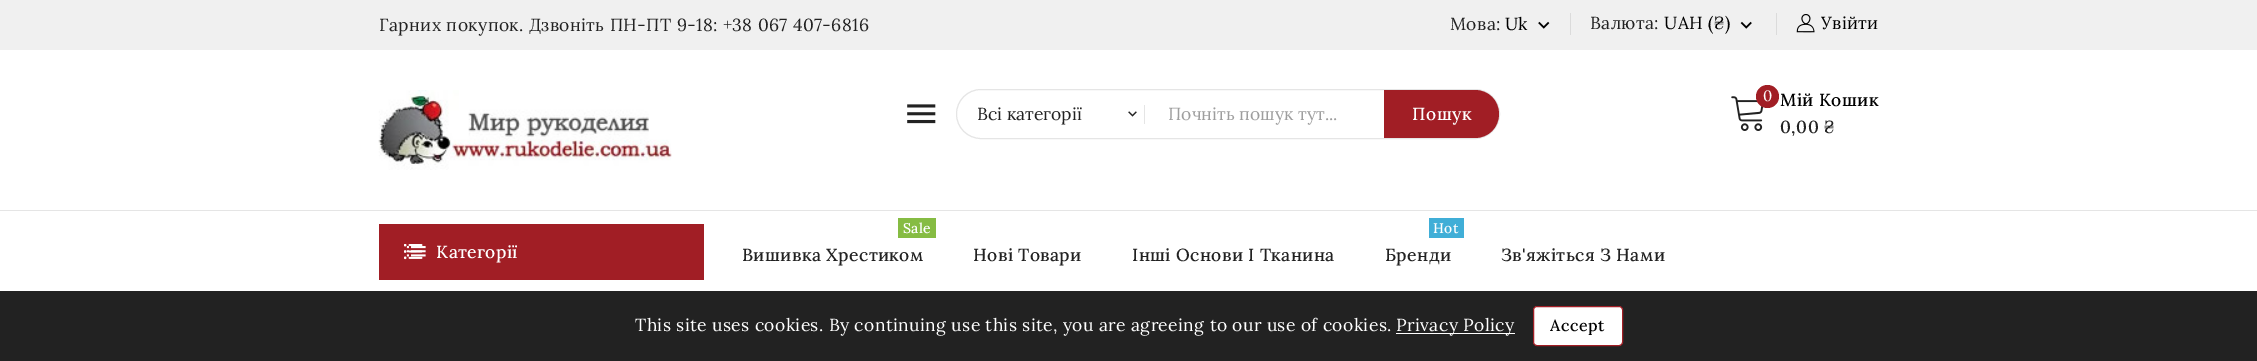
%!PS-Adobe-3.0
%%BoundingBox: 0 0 2257 361
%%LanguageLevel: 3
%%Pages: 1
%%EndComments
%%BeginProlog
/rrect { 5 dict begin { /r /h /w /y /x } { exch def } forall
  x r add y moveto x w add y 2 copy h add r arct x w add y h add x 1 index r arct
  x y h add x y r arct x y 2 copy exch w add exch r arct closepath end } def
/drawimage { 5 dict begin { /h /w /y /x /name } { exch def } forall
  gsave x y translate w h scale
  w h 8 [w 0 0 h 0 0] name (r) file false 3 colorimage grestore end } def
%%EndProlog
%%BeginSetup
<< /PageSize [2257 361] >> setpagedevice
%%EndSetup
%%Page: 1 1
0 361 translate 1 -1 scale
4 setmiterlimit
1 setgray
0 0 2257 361 rectfill
0.941 setgray
0 0 2257 50 rectfill
(images/1.raw) 1538 21 12 8 drawimage
0.859 setgray
1776 13 1 22 rectfill
1570 13 1 22 rectfill
(images/2.raw) 1740 21 12 8 drawimage
(images/3.raw) 1796 14 19 19 drawimage
0.898 setgray
0 210 2257 1 rectfill
(images/4.raw) 378 90 294 80 drawimage
(images/5.raw) 907 104 29 20 drawimage
956.5 89.5 543 49 24.5 rrect stroke
1144 105 1 19 rectfill
(images/6.raw) 1128 111 9 6 drawimage
0.631 0.118 0.145 setrgbcolor
newpath 1384 90 moveto 1475 90 lineto 1488.5 90 1499 100.5 1499 114 curveto 1499 127.5 1488.5 138 1475 138 curveto 1384 138 lineto closepath fill
(images/7.raw) 1731 96 32 35 drawimage
newpath 1767.5 96.5 11.5 0 360 arc closepath fill
379 224 325 56 rectfill
(images/8.raw) 404 244 19 16 drawimage
(images/9.raw) 406 246 20 11 drawimage
0.525 0.737 0.263 setrgbcolor
898 218 38 20 rectfill
0.251 0.682 0.843 setrgbcolor
1429 218 35 20 rectfill
0.133 setgray
0 291 2257 70 rectfill
1 setgray
1396 333 119 1 rectfill
1533.5 306.5 89 39 3.5 rrect gsave fill grestore
0.631 0.118 0.145 setrgbcolor
stroke
/Lora-Regular [17.5 0 0 -17.5 0 0] selectfont
0.133 setgray
379 31 moveto 0.38 0 (Гарних покупок. Дзвоніть ПН-ПТ 9-18: +38 067 407-6816) ashow
1450 30 moveto 0.38 0 (Мова:) ashow
0 setgray
1505 30 moveto (Uk) show
0.133 setgray
1590 29 moveto 0.38 0 (Валюта:) ashow
0 setgray
1664 29 moveto 0.38 0 (UAH \(₴\)) ashow
1821 29 moveto 0.38 0 (Увійти) ashow
0.133 setgray
977 120 moveto (Всі категорії) show
0.62 setgray
1168 120 moveto (Почніть пошук тут...) show
/Lora-Medium [17.5 0 0 -17.5 0 0] selectfont
1 setgray
1412 120 moveto 0.5 0 (Пошук) ashow
/Lora-Regular [15 0 0 -15 0 0] selectfont
1763 101 moveto 0.38 0 (0) ashow
/Lora-Medium [17.5 0 0 -17.5 0 0] selectfont
0 setgray
1780 106 moveto 0.38 0 (Мій Кошик) ashow
0.133 setgray
1780 133 moveto 0.5 0 (0,00 ₴) ashow
1 setgray
436 258 moveto 0.38 0 (Категорії) ashow
/Lora-Medium [14 0 0 -14 0 0] selectfont
903 233 moveto 0.38 0 (Sale) ashow
/Lora-Medium [17.5 0 0 -17.5 0 0] selectfont
0.133 setgray
742 261 moveto 0.38 0 (Вишивка Хрестиком) ashow
973 261 moveto 0.38 0 (Нові Товари) ashow
1132 261 moveto 0.38 0 (Інші Основи І Тканина) ashow
/Lora-Medium [14 0 0 -14 0 0] selectfont
1 setgray
1433 233 moveto 0.38 0 (Hot) ashow
/Lora-Medium [17.5 0 0 -17.5 0 0] selectfont
0.133 setgray
1385 261 moveto 0.38 0 (Бренди) ashow
1501 261 moveto 0.38 0 (Зв'яжіться З Нами) ashow
/Lora-Regular [17.5 0 0 -17.5 0 0] selectfont
1 setgray
635 331 moveto 0.38 0 (This site uses cookies. By continuing use this site, you are agreeing to our use of cookies.) ashow
1396 331 moveto 0.38 0 (Privacy Policy) ashow
/Lora-Medium [16 0 0 -16 0 0] selectfont
0 setgray
1550 331 moveto 0.5 0 (Accept) ashow
showpage
%%EOF
